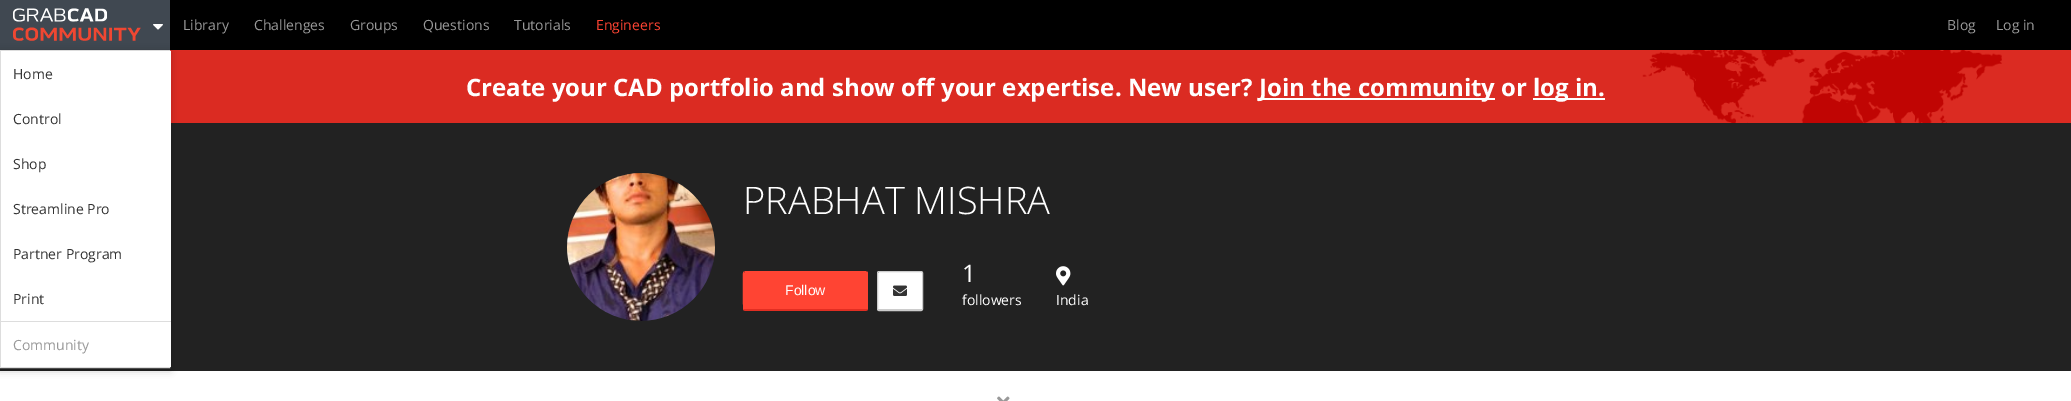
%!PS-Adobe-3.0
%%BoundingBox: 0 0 2071 401
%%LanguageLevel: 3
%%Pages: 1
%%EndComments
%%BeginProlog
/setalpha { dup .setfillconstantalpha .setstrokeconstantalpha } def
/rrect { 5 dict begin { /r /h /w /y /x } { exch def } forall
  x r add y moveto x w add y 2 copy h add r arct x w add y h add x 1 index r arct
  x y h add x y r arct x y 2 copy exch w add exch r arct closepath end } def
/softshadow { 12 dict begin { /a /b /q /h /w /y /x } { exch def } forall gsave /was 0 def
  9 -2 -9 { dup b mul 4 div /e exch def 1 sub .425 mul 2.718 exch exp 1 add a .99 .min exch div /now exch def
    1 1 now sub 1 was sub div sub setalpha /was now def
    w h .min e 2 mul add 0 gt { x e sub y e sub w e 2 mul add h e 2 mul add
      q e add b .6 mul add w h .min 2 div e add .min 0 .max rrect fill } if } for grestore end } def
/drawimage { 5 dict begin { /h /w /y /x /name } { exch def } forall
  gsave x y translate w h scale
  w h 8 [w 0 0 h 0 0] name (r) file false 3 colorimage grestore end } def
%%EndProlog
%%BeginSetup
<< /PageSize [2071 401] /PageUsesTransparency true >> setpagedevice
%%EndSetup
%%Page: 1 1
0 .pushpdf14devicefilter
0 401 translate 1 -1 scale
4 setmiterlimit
1 setgray
0 0 2071 401 rectfill
0 setgray
170 0 1901 50 rectfill
0.251 0.282 0.318 setrgbcolor
0 0 170 50 rectfill
(images/1.raw) 13 8 128 33 drawimage
(images/2.raw) 153 24 10 6 drawimage
0.859 0.169 0.133 setrgbcolor
170 50 1901 73 rectfill
0.133 setgray
0 123 2071 248 rectfill
0 setgray
0 52 170 318 0 4 0.25 softshadow
0.867 setgray
0.5 50.5 169 317 rectstroke
1 setgray
1 51 170 270 rectfill
0.867 setgray
1 321 170 1 rectfill
1 setgray
1 322 170 45 rectfill
(images/3.raw) 1642 50 360 73 drawimage
1259 98 236 2 rectfill
1533 98 72 2 rectfill
(images/4.raw) 567 173 148 148 drawimage
1 0.267 0.2 setrgbcolor
newpath 745 272 moveto 866 272 lineto 867 272 867 272 867 273 curveto 867 309 lineto 744 309 lineto 744 273 lineto closepath fill
newpath 745 271 moveto 744 272 lineto 745 272 lineto 867 272 lineto 866 271 lineto closepath fill
newpath 868 309 moveto 868 273 lineto 867.5 271.5 lineto 867 272 lineto 867 297 lineto 867 300 866.5 307.5 867.5 310 curveto closepath fill
0.886 0.18 0.133 setrgbcolor
newpath 745 311 moveto 866 311 lineto 868 310 lineto 867 309 lineto 744 309 lineto 743 310 lineto closepath fill
1 0.267 0.2 setrgbcolor
newpath 743 273 moveto 743 277.5 742.5 309 743.5 310 curveto 744 309 lineto 744 273 lineto 744.5 272.5 lineto 743.5 271.5 lineto closepath fill
1 setgray
newpath 879 272 moveto 921 272 lineto 922 272 922 272 922 273 curveto 922 309 lineto 878 309 lineto 878 273 lineto closepath fill
0.8 setgray
877.5 271.5 45 39 1.5 rrect stroke
878 309 44 1 rectfill
(images/5.raw) 893 285 14 11 drawimage
(images/6.raw) 1056 266 15 20 drawimage
(images/7.raw) 997 396 13 5 drawimage
/OpenSans-Regular [14 0 0 -14 0 0] selectfont
0.6 setgray
183 30 moveto (Library) show
254 30 moveto (Challenges) show
350 30 moveto (Groups) show
423 30 moveto (Questions) show
514 30 moveto (Tutorials) show
1 0.267 0.2 setrgbcolor
596 30 moveto (Engineers) show
0.6 setgray
1947 30 moveto (Blog) show
1996 30 moveto (Log in) show
0.2 setgray
13 79 moveto (Home) show
13 124 moveto (Control) show
13 169 moveto (Shop) show
13 214 moveto (Streamline Pro) show
13 259 moveto (Partner Program) show
13 304 moveto (Print) show
0.6 setgray
13 350 moveto (Community) show
/OpenSans-Bold [24 0 0 -24 0 0] selectfont
1 setgray
466 96 moveto (Create your CAD portfolio and show off your expertise. New user?) show
1259 96 moveto (Join the community or) show
1533 96 moveto (log in.) show
/OpenSans-Light [38 0 0 -38 0 0] selectfont
743 214 moveto (PRABHAT MISHRA) show
/LiberationSans-Regular [14 0 0 -14 0 0] selectfont
785 295 moveto (Follow) show
/OpenSans-Regular [24 0 0 -24 0 0] selectfont
962 282 moveto (1) show
/OpenSans-Regular [14 0 0 -14 0 0] selectfont
962 305 moveto (followers) show
1056 305 moveto (India) show
.poppdf14devicefilter showpage
%%EOF
